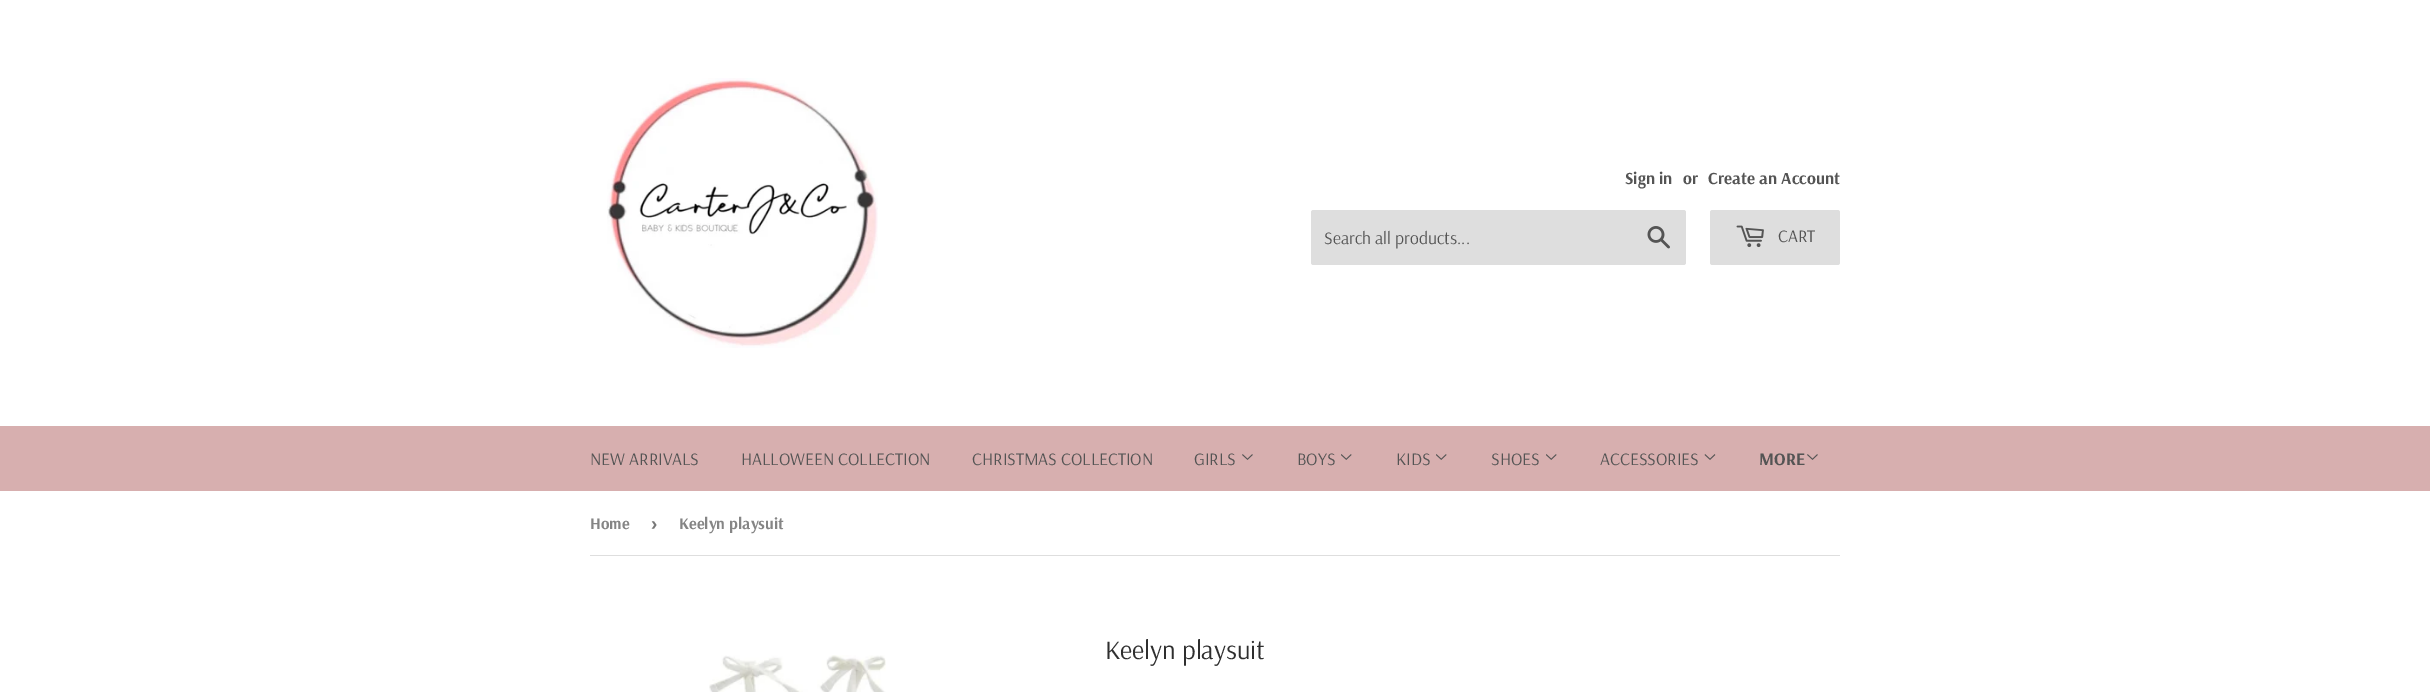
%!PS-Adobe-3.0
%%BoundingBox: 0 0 2430 692
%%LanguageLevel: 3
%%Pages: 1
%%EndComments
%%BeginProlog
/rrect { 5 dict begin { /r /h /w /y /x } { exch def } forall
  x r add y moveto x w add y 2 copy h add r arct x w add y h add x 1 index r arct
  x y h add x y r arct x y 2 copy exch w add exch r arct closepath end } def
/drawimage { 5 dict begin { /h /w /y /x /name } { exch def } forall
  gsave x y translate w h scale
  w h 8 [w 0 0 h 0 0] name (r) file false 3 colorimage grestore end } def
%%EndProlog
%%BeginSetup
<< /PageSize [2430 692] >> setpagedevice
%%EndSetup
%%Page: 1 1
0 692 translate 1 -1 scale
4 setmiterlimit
1 setgray
0 0 2430 692 rectfill
(images/1.raw) 607 78 271 270 drawimage
0.871 setgray
1311 210 375 55 2.5 rrect fill
(images/2.raw) 1647 226 23 23 drawimage
1710 210 130 55 2.5 rrect fill
(images/3.raw) 1736 225 28 23 drawimage
0.843 0.686 0.686 setrgbcolor
0 426 2430 65 rectfill
(images/4.raw) 1242 454 11 6 drawimage
(images/5.raw) 1341 454 11 6 drawimage
(images/5.raw) 1436 454 11 6 drawimage
(images/5.raw) 1546 454 11 6 drawimage
(images/6.raw) 1704 454 12 6 drawimage
(images/4.raw) 1807 454 11 6 drawimage
0.871 setgray
590 555 1250 1 rectfill
(images/7.raw) 709 655 177 37 drawimage
/Arsenal-Bold [17 0 0 -17 0 0] selectfont
0.329 setgray
1625 184 moveto (Sign in) show
1683 184 moveto (or) show
1708 184 moveto (Create an Account) show
/Arsenal-Regular [17.5 0 0 -17.5 0 0] selectfont
1324 244 moveto (Search all products...) show
1778 242 moveto (CART) show
590 465 moveto (NEW ARRIVALS) show
741 465 moveto (HALLOWEEN COLLECTION) show
972 465 moveto (CHRISTMAS COLLECTION) show
1194 465 moveto (GIRLS) show
1297 465 moveto (BOYS) show
1396 465 moveto (KIDS) show
1491 465 moveto (SHOES) show
1600 465 moveto (ACCESSORIES) show
/Arsenal-Bold [17.5 0 0 -17.5 0 0] selectfont
1759 465 moveto (MORE) show
/Arsenal-Bold [16.25 0 0 -16.25 0 0] selectfont
0.522 setgray
590 529 moveto (Home) show
/LiberationSans-Bold [19 0 0 -19 0 0] selectfont
0.463 setgray
651 530 moveto (›) show
/Arsenal-Bold [16.25 0 0 -16.25 0 0] selectfont
0.522 setgray
679 529 moveto (Keelyn playsuit) show
/Arsenal-Regular [26.5 0 0 -26.5 0 0] selectfont
0.184 setgray
1105 659 moveto (Keelyn playsuit) show
showpage
%%EOF
